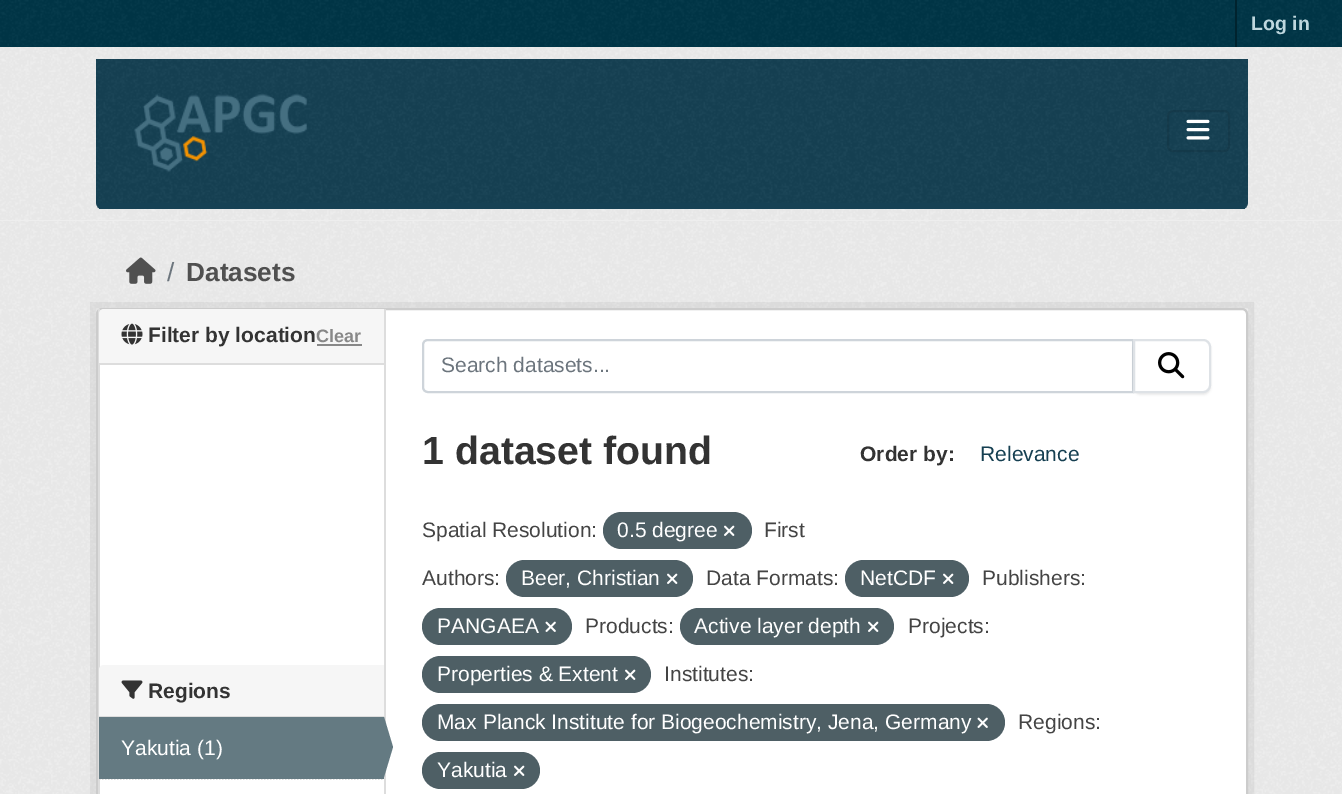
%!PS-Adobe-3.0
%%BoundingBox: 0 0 1342 794
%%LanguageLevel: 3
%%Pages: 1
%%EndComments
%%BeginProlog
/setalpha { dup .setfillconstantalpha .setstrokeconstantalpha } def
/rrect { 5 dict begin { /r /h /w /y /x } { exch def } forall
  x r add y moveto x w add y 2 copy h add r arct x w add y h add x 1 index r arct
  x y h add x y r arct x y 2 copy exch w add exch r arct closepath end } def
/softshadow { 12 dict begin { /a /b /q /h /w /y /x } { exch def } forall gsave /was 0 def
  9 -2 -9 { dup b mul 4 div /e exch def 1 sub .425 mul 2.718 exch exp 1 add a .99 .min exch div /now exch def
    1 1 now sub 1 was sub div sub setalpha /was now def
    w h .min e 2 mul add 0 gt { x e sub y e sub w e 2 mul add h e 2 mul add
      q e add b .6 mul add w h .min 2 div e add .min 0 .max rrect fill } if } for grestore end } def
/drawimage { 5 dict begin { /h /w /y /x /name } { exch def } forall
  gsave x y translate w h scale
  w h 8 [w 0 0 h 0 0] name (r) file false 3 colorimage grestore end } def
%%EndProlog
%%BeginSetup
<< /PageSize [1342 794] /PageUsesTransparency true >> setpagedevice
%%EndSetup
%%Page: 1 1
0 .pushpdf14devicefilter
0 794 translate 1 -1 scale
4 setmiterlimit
0 0.212 0.278 setrgbcolor
0 0 1342 794 rectfill
(images/1.raw) 0 0 1342 46 drawimage
0 0.137 0.18 setrgbcolor
1235 0 2 47 rectfill
0.933 setgray
0 47 1342 747 rectfill
(images/2.raw) 0 47 1342 173 drawimage
0.086 0.255 0.329 setrgbcolor
newpath 96 59 moveto 1248 59 lineto 1248 203 lineto 1248 206.5 1245.5 209 1242 209 curveto 102 209 lineto 98.5 209 96 206.5 96 203 curveto closepath fill
(images/3.raw) 96 59 1152 148 drawimage
99 203 1146 6 rectfill
(images/4.raw) 134 94 173 78 drawimage
0.1 setalpha
0 setgray
2 setlinewidth
1168 111 61 40 5 rrect stroke
1 setalpha
(images/5.raw) 1186 119 24 21 drawimage
(images/6.raw) 0 221 1342 573 drawimage
(images/7.raw) 126 257 30 27 drawimage
0.05 setalpha
6 setlinewidth
93 305 1158 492 rectstroke
1 setalpha
1 setgray
97 309 1150 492 5 rrect gsave fill grestore
0.8 setgray
2 setlinewidth
stroke
0.867 setgray
98 309 2 485 rectfill
0.965 setgray
newpath 104 309 moveto 384 309 lineto 384 365 lineto 99 365 lineto 99 314 lineto 99 311 101 309 104 309 curveto closepath fill
0.867 setgray
99 363 285 2 rectfill
(images/8.raw) 121 323 22 22 drawimage
0.533 setgray
317 344 45 2 rectfill
0.965 setgray
newpath 104 665 moveto 384 665 lineto 384 717 lineto 99 717 lineto 99 670 lineto 99 667 101 665 104 665 curveto closepath fill
0.867 setgray
99 716 285 1 rectfill
(images/9.raw) 121 680 22 19 drawimage
1.5 setlinewidth
[1.5 1.5] 0 setdash
newpath 99 779 moveto 384 779 lineto stroke
0.392 0.478 0.51 setrgbcolor
99 717 285 62 rectfill
0.867 setgray
384 309 2 485 rectfill
0.392 0.478 0.51 setrgbcolor
newpath 384 777 moveto 384 717 lineto 393 747 lineto closepath fill
0.808 0.831 0.855 setrgbcolor
2 setlinewidth
[] 0 setdash
newpath 428 340 moveto 1133 340 lineto 1133 392 lineto 428 392 lineto 425 392 423 390 423 387 curveto 423 345 lineto 423 342 425 340 428 340 curveto closepath stroke
0 setgray
1133 341 78 54 8 1 0.07 softshadow
1 setgray
newpath 1134 340 moveto 1203 340 lineto 1207 340 1210 343 1210 347 curveto 1210 385 lineto 1210 389 1207 392 1203 392 curveto 1134 392 lineto closepath gsave fill grestore
0.871 0.886 0.902 setrgbcolor
stroke
(images/10.raw) 1158 352 27 27 drawimage
0.306 0.373 0.396 setrgbcolor
603 512 149 37 18.5 rrect fill
(images/11.raw) 724 525 11 11 drawimage
506 560 187 37 18.5 rrect fill
(images/11.raw) 667 573 11 11 drawimage
845 560 124 37 18.5 rrect fill
(images/11.raw) 943 573 11 11 drawimage
422 608 150 37 18.5 rrect fill
(images/12.raw) 545 621 11 11 drawimage
680 608 214 37 18.5 rrect fill
(images/11.raw) 868 621 11 11 drawimage
422 656 229 37 18.5 rrect fill
(images/11.raw) 625 669 11 11 drawimage
422 704 583 37 18.5 rrect fill
(images/12.raw) 977 717 11 11 drawimage
422 752 118 37 18.5 rrect fill
(images/11.raw) 514 765 11 11 drawimage
/LiberationSans-Bold [19.5 0 0 -19.5 0 0] selectfont
0.749 0.843 0.871 setrgbcolor
1251 30 moveto (Log in) show
/LiberationSans-Regular [26.25 0 0 -26.25 0 0] selectfont
0.424 0.459 0.49 setrgbcolor
167 281 moveto (/) show
/LiberationSans-Bold [26.25 0 0 -26.25 0 0] selectfont
0.314 setgray
186 281 moveto (Datasets) show
/LiberationSans-Bold [21 0 0 -21 0 0] selectfont
0.2 setgray
148 342 moveto (Filter by location) show
/LiberationSans-Bold [18 0 0 -18 0 0] selectfont
0.533 setgray
316 342 moveto (Clear) show
/LiberationSans-Bold [21 0 0 -21 0 0] selectfont
0.2 setgray
148 698 moveto (Regions) show
/LiberationSans-Regular [21 0 0 -21 0 0] selectfont
1 setgray
121 755 moveto (Yakutia \(1\)) show
0.424 0.459 0.49 setrgbcolor
441 372 moveto (Search datasets...) show
/LiberationSans-Bold [39.25 0 0 -39.25 0 0] selectfont
0.2 setgray
422 464 moveto (1 dataset found) show
/LiberationSans-Bold [21 0 0 -21 0 0] selectfont
860 461 moveto (Order by:) show
/LiberationSans-Regular [21 0 0 -21 0 0] selectfont
0.082 0.247 0.318 setrgbcolor
980 461 moveto (Relevance) show
0.267 setgray
422 537 moveto (Spatial Resolution:) show
1 setgray
617 537 moveto (0.5 degree) show
0.267 setgray
764 537 moveto (First) show
422 585 moveto (Authors:) show
1 setgray
521 585 moveto (Beer, Christian) show
0.267 setgray
706 585 moveto (Data Formats:) show
1 setgray
860 585 moveto (NetCDF) show
0.267 setgray
982 585 moveto (Publishers:) show
1 setgray
437 633 moveto (PANGAEA) show
0.267 setgray
585 633 moveto (Products:) show
1 setgray
694 633 moveto (Active layer depth) show
0.267 setgray
908 633 moveto (Projects:) show
1 setgray
437 681 moveto (Properties & Extent) show
0.267 setgray
664 681 moveto (Institutes:) show
1 setgray
437 729 moveto (Max Planck Institute for Biogeochemistry, Jena, Germany) show
0.267 setgray
1018 729 moveto (Regions:) show
1 setgray
437 777 moveto (Yakutia) show
.poppdf14devicefilter showpage
%%EOF
